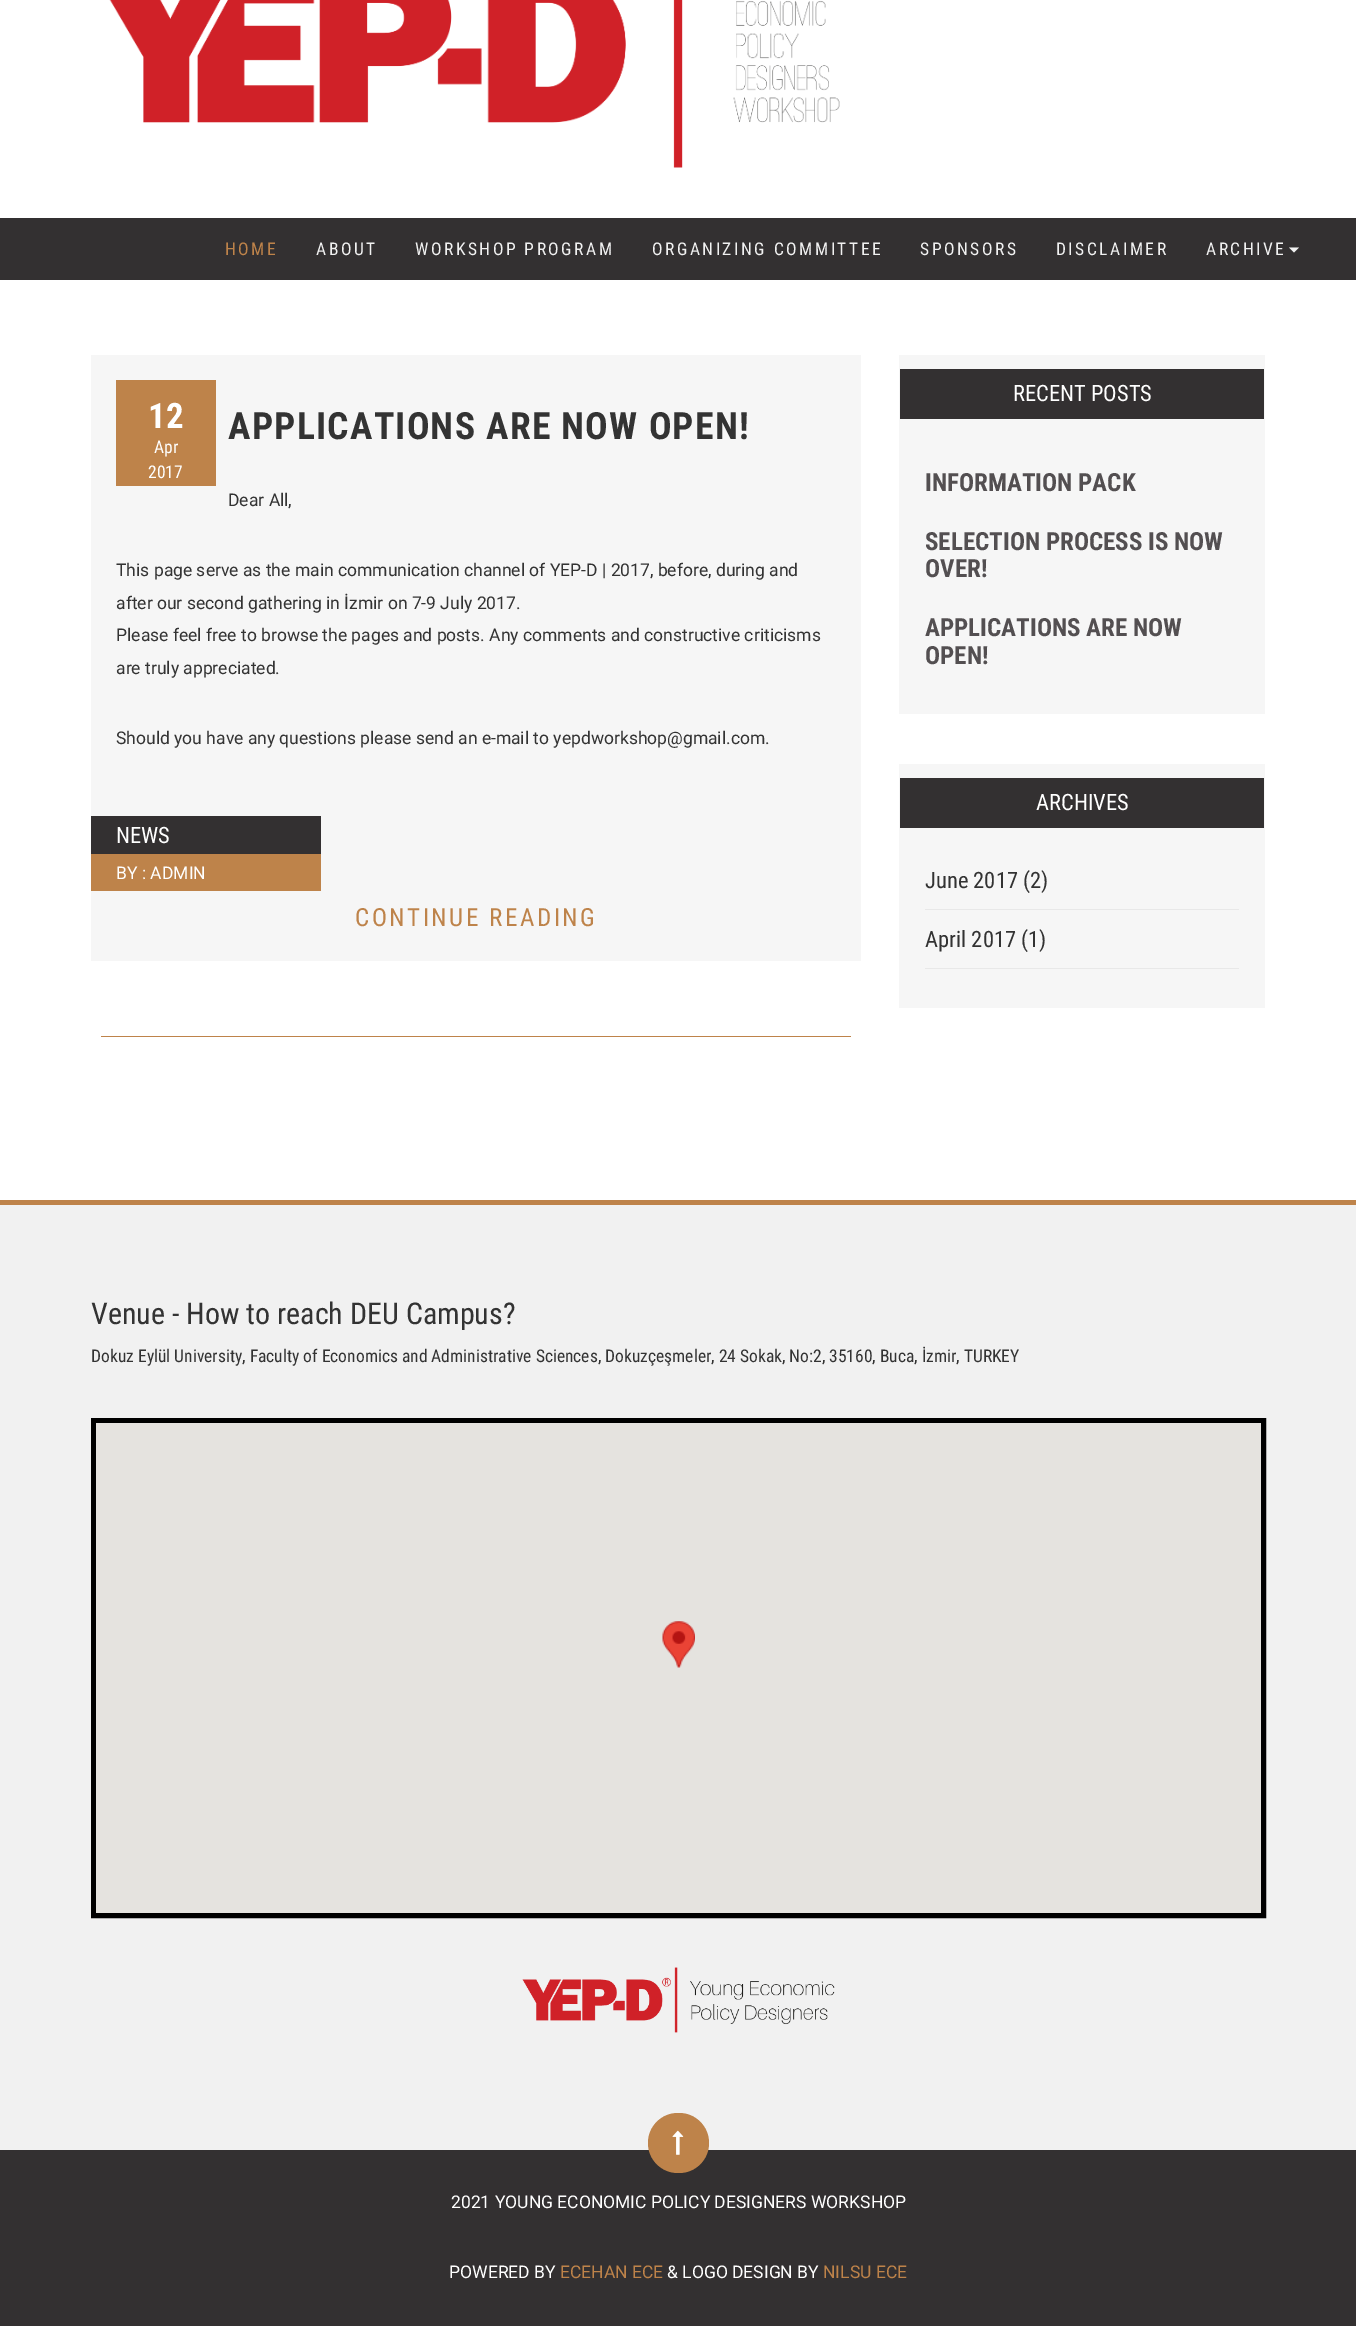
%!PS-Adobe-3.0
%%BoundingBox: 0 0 1356 2326
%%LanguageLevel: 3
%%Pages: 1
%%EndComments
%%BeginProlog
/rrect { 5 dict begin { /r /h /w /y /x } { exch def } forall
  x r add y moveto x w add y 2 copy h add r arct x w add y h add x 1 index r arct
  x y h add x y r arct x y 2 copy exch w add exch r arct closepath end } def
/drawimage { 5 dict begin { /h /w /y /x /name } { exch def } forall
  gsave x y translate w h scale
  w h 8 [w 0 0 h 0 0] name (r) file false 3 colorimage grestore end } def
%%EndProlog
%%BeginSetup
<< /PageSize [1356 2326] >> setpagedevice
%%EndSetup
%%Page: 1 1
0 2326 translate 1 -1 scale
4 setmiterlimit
1 setgray
0 0 1356 2326 rectfill
(images/1.raw) 109 0 731 168 drawimage
0.2 0.188 0.192 setrgbcolor
0 218 1356 62 rectfill
0.945 setgray
newpath 1289 247.5 moveto 1299 247.5 lineto 1294 252.5 lineto closepath fill
0.965 setgray
91 355 770 606 rectfill
0.745 0.514 0.29 setrgbcolor
116 380 100 106 rectfill
0.2 0.188 0.192 setrgbcolor
91 816 230 38 rectfill
0.745 0.514 0.29 setrgbcolor
91 854 230 37 rectfill
101 1036 750 1 rectfill
0.965 setgray
899 355 366 359 rectfill
0.2 0.188 0.192 setrgbcolor
900 369 364 50 rectfill
0.965 setgray
899 764 366 244 rectfill
0.2 0.188 0.192 setrgbcolor
900 778 364 50 rectfill
0.91 setgray
925 909 314 1 rectfill
925 968 314 1 rectfill
0.945 setgray
0 1205 1356 945 rectfill
0.745 0.514 0.29 setrgbcolor
0 1200 1356 5 rectfill
0 setgray
5 setlinewidth
93.5 1420.5 1170 495 rectstroke
0.898 0.89 0.875 setrgbcolor
96 1423 1165 490 rectfill
(images/2.raw) 662 1621 33 47 drawimage
(images/3.raw) 522 1967 313 66 drawimage
0.2 0.188 0.192 setrgbcolor
0 2150 1356 176 rectfill
0.745 0.514 0.29 setrgbcolor
648 2113 61 60 30 rrect fill
(images/4.raw) 672 2130 12 25 drawimage
/RobotoCondensed-Regular [17.5 0 0 -17.5 0 0] selectfont
225 255 moveto 2.5 0 (HOME) ashow
0.945 setgray
316 255 moveto 2.5 0 (ABOUT) ashow
415 255 moveto 2.5 0 (WORKSHOP PROGRAM) ashow
652 255 moveto 2.5 0 (ORGANIZING COMMITTEE) ashow
920 255 moveto 2.5 0 (SPONSORS) ashow
1056 255 moveto 2.5 0 (DISCLAIMER) ashow
1206 255 moveto 2.5 0 (ARCHIVE) ashow
/RobotoCondensed-Bold [35 0 0 -35 0 0] selectfont
1 setgray
148 428 moveto (12) show
/RobotoCondensed-Regular [17.5 0 0 -17.5 0 0] selectfont
154 453 moveto (Apr) show
148 478 moveto (2017) show
/RobotoCondensed-Bold [37.5 0 0 -37.5 0 0] selectfont
0.2 setgray
228 439 moveto 1.25 0 (APPLICATIONS ARE NOW OPEN!) ashow
/Roboto-Regular [17.5 0 0 -17.5 0 0] selectfont
228 506 moveto (Dear All,) show
116 576 moveto (This page serve as the main communication channel of YEP-D | 2017, before, during and) show
116 609 moveto (after our second gathering in İzmir on 7-9 July 2017.) show
116 641 moveto (Please feel free to browse the pages and posts. Any comments and constructive criticisms) show
116 674 moveto (are truly appreciated.) show
116 744 moveto (Should you have any questions please send an e-mail to yepdworkshop@gmail.com.) show
/RobotoCondensed-Regular [22.5 0 0 -22.5 0 0] selectfont
1 setgray
116 843 moveto (NEWS) show
/Roboto-Regular [17.5 0 0 -17.5 0 0] selectfont
116 879 moveto (BY : ADMIN) show
/RobotoCondensed-Regular [25 0 0 -25 0 0] selectfont
0.745 0.514 0.29 setrgbcolor
355 926 moveto 2.5 0 (CONTINUE READING) ashow
/RobotoCondensed-Regular [22.5 0 0 -22.5 0 0] selectfont
1 setgray
1013 401 moveto (RECENT POSTS) show
/RobotoCondensed-Bold [25 0 0 -25 0 0] selectfont
0.325 0.31 0.318 setrgbcolor
925 491 moveto (INFORMATION PACK) show
925 550 moveto (SELECTION PROCESS IS NOW) show
925 577 moveto (OVER!) show
925 636 moveto (APPLICATIONS ARE NOW) show
925 664 moveto (OPEN!) show
/RobotoCondensed-Regular [22.5 0 0 -22.5 0 0] selectfont
1 setgray
1036 810 moveto (ARCHIVES) show
0.2 setgray
925 888 moveto (June 2017 \(2\)) show
925 947 moveto (April 2017 \(1\)) show
/RobotoCondensed-Regular [30 0 0 -30 0 0] selectfont
91 1324 moveto (Venue - How to reach DEU Campus?) show
/RobotoCondensed-Regular [17.5 0 0 -17.5 0 0] selectfont
91 1362 moveto (Dokuz Eylül University, Faculty of Economics and Administrative Sciences, Dokuzçeşmeler, 24 Sokak, No:2, 35160, Buca, İzmir, TURKEY) show
/Roboto-Regular [17.5 0 0 -17.5 0 0] selectfont
1 setgray
451 2208 moveto (2021 YOUNG ECONOMIC POLICY DESIGNERS WORKSHOP) show
449 2278 moveto (POWERED BY) show
0.745 0.514 0.29 setrgbcolor
560 2278 moveto (ECEHAN ECE) show
1 setgray
667 2278 moveto (& LOGO DESIGN BY) show
0.745 0.514 0.29 setrgbcolor
823 2278 moveto (NILSU ECE) show
showpage
%%EOF
